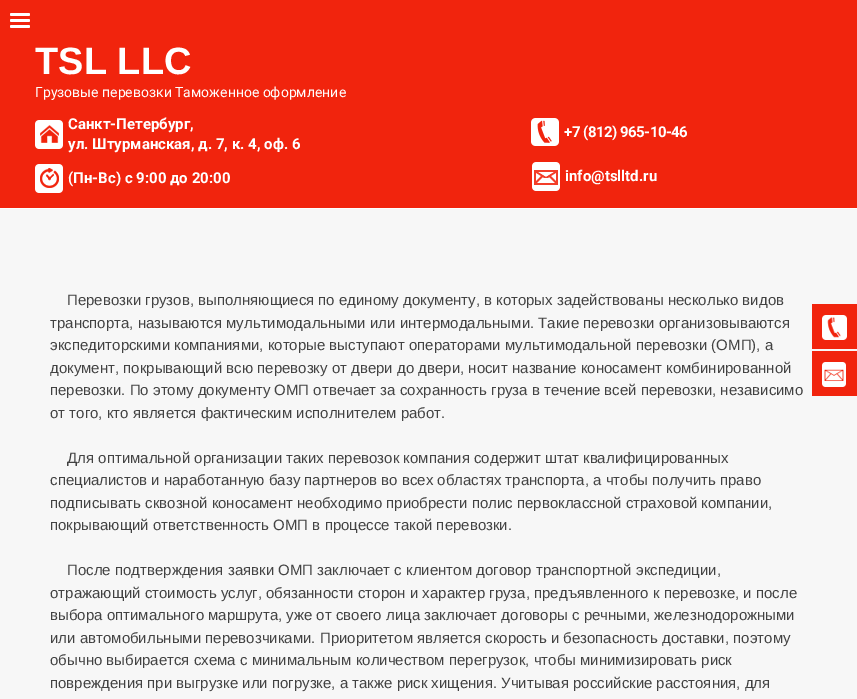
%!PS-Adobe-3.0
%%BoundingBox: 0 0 857 699
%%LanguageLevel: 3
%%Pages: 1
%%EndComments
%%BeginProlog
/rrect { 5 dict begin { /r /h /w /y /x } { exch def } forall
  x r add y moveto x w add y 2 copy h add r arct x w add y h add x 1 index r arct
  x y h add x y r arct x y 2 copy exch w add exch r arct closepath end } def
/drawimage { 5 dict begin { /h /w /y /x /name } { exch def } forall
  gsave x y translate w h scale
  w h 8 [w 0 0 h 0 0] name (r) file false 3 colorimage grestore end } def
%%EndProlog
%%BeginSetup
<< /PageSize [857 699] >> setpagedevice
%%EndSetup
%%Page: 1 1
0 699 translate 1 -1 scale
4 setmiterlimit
1 setgray
0 0 857 699 rectfill
0.945 0.141 0.051 setrgbcolor
0 0 857 208 rectfill
1 setgray
10 13 20 3 1.5 rrect fill
10 19 20 3 1.5 rrect fill
10 25 20 3 1.5 rrect fill
(images/1.raw) 35 120 28 29 drawimage
(images/2.raw) 35 164 28 29 drawimage
(images/3.raw) 531 118 28 28 drawimage
(images/4.raw) 532 162 28 29 drawimage
0.969 setgray
0 209 857 490 rectfill
0.945 0.141 0.051 setrgbcolor
812 304 45 45 rectfill
(images/5.raw) 822 315 25 25 drawimage
812 351 45 45 rectfill
(images/6.raw) 822 362 24 25 drawimage
/LiberationSans-Bold [38 0 0 -38 0 0] selectfont
1 setgray
35 74 moveto (TSL LLC) show
/Roboto-Regular [14 0 0 -14 0 0] selectfont
35 97 moveto (Грузовые перевозки Таможенное оформление) show
/Roboto-Bold [15 0 0 -15 0 0] selectfont
68 129 moveto (Санкт-Петербург,) show
68 149 moveto (ул. Штурманская, д. 7, к. 4, оф. 6) show
68 183 moveto (\(Пн-Вс\) с 9:00 до 20:00) show
564 137 moveto -0.5 0 (+7 \(812\) 965-10-46) ashow
565 181 moveto (info@tslltd.ru) show
/LiberationSans-Regular [15 0 0 -15 0 0] selectfont
0.259 setgray
67 305 moveto (Перевозки грузов, выполняющиеся по единому документу, в которых задействованы несколько видов) show
50 328 moveto (транспорта, называются мультимодальными или интермодальными. Такие перевозки организовываются) show
50 350 moveto (экспедиторскими компаниями, которые выступают операторами мультимодальной перевозки \(ОМП\), а) show
50 373 moveto (документ, покрывающий всю перевозку от двери до двери, носит название коносамент комбинированной) show
50 395 moveto (перевозки. По этому документу ОМП отвечает за сохранность груза в течение всей перевозки, независимо) show
50 418 moveto (от того, кто является фактическим исполнителем работ.) show
67 463 moveto (Для оптимальной организации таких перевозок компания содержит штат квалифицированных) show
50 485 moveto (специалистов и наработанную базу партнеров во всех областях транспорта, а чтобы получить право) show
50 508 moveto (подписывать сквозной коносамент необходимо приобрести полис первоклассной страховой компании,) show
50 530 moveto (покрывающий ответственность ОМП в процессе такой перевозки.) show
67 575 moveto (После подтверждения заявки ОМП заключает с клиентом договор транспортной экспедиции,) show
50 598 moveto (отражающий стоимость услуг, обязанности сторон и характер груза, предъявленного к перевозке, и после) show
50 620 moveto (выбора оптимального маршрута, уже от своего лица заключает договоры с речными, железнодорожными) show
50 643 moveto (или автомобильными перевозчиками. Приоритетом является скорость и безопасность доставки, поэтому) show
50 665 moveto (обычно выбирается схема с минимальным количеством перегрузок, чтобы минимизировать риск) show
50 688 moveto (повреждения при выгрузке или погрузке, а также риск хищения. Учитывая российские расстояния, для) show
showpage
%%EOF
